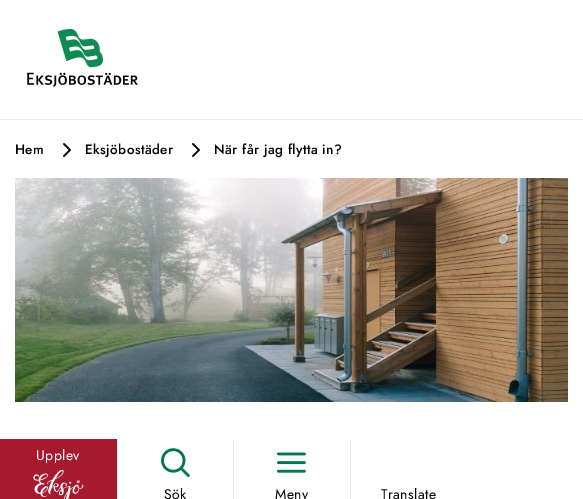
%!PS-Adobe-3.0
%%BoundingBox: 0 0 583 499
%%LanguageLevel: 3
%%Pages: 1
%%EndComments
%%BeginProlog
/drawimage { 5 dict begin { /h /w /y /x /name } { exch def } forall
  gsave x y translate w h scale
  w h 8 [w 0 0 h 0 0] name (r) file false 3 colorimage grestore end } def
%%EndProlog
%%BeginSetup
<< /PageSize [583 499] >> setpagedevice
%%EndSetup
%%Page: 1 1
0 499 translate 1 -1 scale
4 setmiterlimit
1 setgray
0 0 583 499 rectfill
0.933 setgray
0 119 583 1 rectfill
(images/1.raw) 27 29 111 58 drawimage
(images/2.raw) 63 143 8 14 drawimage
(images/2.raw) 192 143 8 14 drawimage
(images/3.raw) 15 178 553 224 drawimage
0.651 0.098 0.18 setrgbcolor
1 439 115 60 rectfill
newpath 0 439 moveto 117 439 lineto 117 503 lineto 117 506 114 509 111 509 curveto 6 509 lineto 3 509 0 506 0 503 curveto closepath 1 439 moveto 116 439 lineto 116 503 lineto 116 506 114 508 111 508 curveto 6 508 lineto 3 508 1 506 1 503 curveto closepath eofill
(images/4.raw) 33 470 51 29 drawimage
0.933 setgray
117 439 1 60 rectfill
(images/5.raw) 161 448 29 29 drawimage
233 439 1 60 rectfill
(images/6.raw) 277 452 29 21 drawimage
350 439 1 60 rectfill
/Jost-Medium [13.5 0 0 -13.5 0 0] selectfont
0 setgray
15 154 moveto 0.4 0 (Hem) ashow
85 154 moveto 0.4 0 (Eksjöbostäder) ashow
214 154 moveto 0.4 0 (När får jag flytta in?) ashow
/Jost-Regular [14 0 0 -14 0 0] selectfont
1 setgray
36 460 moveto 0.4 0 (Upplev) ashow
0 setgray
164 499 moveto 0.4 0 (Sök) ashow
275 499 moveto 0.4 0 (Meny) ashow
381 499 moveto 0.4 0 (Translate) ashow
showpage
%%EOF
